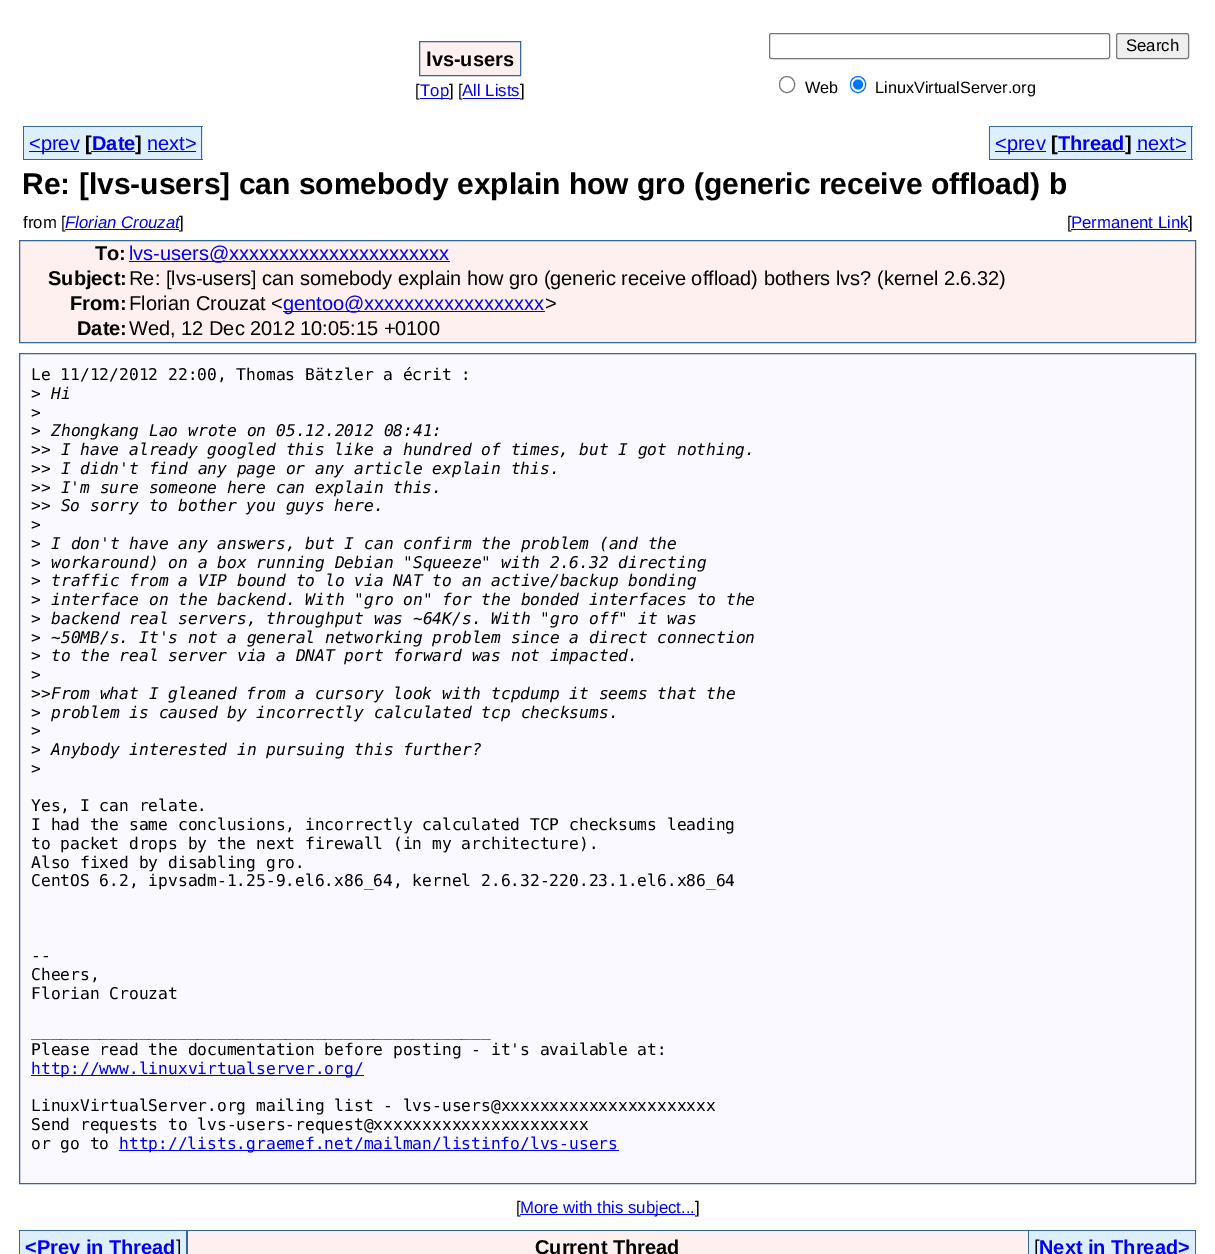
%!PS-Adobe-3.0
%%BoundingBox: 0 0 1215 1254
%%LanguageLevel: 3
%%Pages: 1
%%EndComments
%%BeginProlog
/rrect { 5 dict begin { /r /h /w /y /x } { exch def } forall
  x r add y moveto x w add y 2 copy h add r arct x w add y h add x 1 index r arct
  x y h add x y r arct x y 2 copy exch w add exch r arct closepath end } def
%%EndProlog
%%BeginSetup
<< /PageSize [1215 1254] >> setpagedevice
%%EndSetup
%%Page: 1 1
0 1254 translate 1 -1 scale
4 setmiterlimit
1 setgray
0 0 1215 1254 rectfill
1 0.941 0.941 setrgbcolor
newpath 419.5 41.5 moveto 520.5 41.5 lineto 520.5 75.5 lineto 419.5 75.5 lineto closepath gsave fill grestore
0.2 0.4 0.6 setrgbcolor
stroke
0 0 0.933 setrgbcolor
420 98 29 1 rectfill
463 98 57 1 rectfill
0.463 setgray
769.5 33.5 340 25 2 rrect stroke
0.937 setgray
1116.5 33.5 72 25 2 rrect gsave fill grestore
0.463 setgray
stroke
779.5 76.5 15 16 7.5 rrect stroke
0 0.459 1 setrgbcolor
850.5 76.5 15 16 7.5 rrect stroke
newpath 858 84.5 5 0 360 arc closepath fill
0.867 0.933 1 setrgbcolor
24 127 55 32 rectfill
0.2 0.4 0.6 setrgbcolor
23 126 56 1 rectfill
23 159 56 1 rectfill
23 126 1 34 rectfill
0.867 0.933 1 setrgbcolor
79 126 12 34 rectfill
0.2 0.4 0.6 setrgbcolor
79 159 56 1 rectfill
0 0 0.933 setrgbcolor
29 151 50 1 rectfill
0.2 0.4 0.6 setrgbcolor
79 126 56 1 rectfill
0.867 0.933 1 setrgbcolor
91 127 44 32 rectfill
135 126 13 34 rectfill
0.2 0.4 0.6 setrgbcolor
135 126 68 1 rectfill
135 159 13 1 rectfill
0.867 0.933 1 setrgbcolor
148 127 55 32 rectfill
0.2 0.4 0.6 setrgbcolor
201 126 1 34 rectfill
148 159 55 1 rectfill
0 0 0.933 setrgbcolor
148 151 48 1 rectfill
0.867 0.933 1 setrgbcolor
990 127 56 32 rectfill
0.2 0.4 0.6 setrgbcolor
989 126 57 1 rectfill
989 159 57 1 rectfill
989 126 1 34 rectfill
0.867 0.933 1 setrgbcolor
1046 126 12 34 rectfill
0.2 0.4 0.6 setrgbcolor
1046 159 79 1 rectfill
0 0 0.933 setrgbcolor
995 151 51 1 rectfill
0.867 0.933 1 setrgbcolor
1058 127 67 32 rectfill
0 0 0.933 setrgbcolor
1058 151 67 1 rectfill
0.2 0.4 0.6 setrgbcolor
1046 126 79 1 rectfill
0.867 0.933 1 setrgbcolor
1125 126 11 34 rectfill
0.2 0.4 0.6 setrgbcolor
1125 126 68 1 rectfill
1125 159 11 1 rectfill
0.867 0.933 1 setrgbcolor
1136 127 57 32 rectfill
0.2 0.4 0.6 setrgbcolor
1191 126 1 34 rectfill
1136 159 57 1 rectfill
0 0 0.933 setrgbcolor
1136 151 50 1 rectfill
65 229 114 1 rectfill
1 0.941 0.941 setrgbcolor
newpath 19.5 240.5 moveto 1195.5 240.5 lineto 1195.5 342.5 lineto 19.5 342.5 lineto closepath gsave fill grestore
0.2 0.4 0.6 setrgbcolor
stroke
0 0 0.933 setrgbcolor
129 261 321 1 rectfill
283 311 262 1 rectfill
0.976 0.976 1 setrgbcolor
newpath 19.5 353.5 moveto 1195.5 353.5 lineto 1195.5 1183.5 lineto 19.5 1183.5 lineto closepath gsave fill grestore
0.2 0.4 0.6 setrgbcolor
stroke
0 0 0.933 setrgbcolor
31 1075 333 1 rectfill
119 1150 500 1 rectfill
0.2 0.4 0.6 setrgbcolor
19 1230 1177 24 rectfill
0.867 0.933 1 setrgbcolor
20 1231 166 23 rectfill
1 0.941 0.941 setrgbcolor
188 1231 840 23 rectfill
0.867 0.933 1 setrgbcolor
1029 1231 166 23 rectfill
/LiberationSans-Bold [20 0 0 -20 0 0] selectfont
0 setgray
426 66 moveto (lvs-users) show
/LiberationSans-Regular [16.75 0 0 -16.75 0 0] selectfont
415 96 moveto ([) show
0 0 0.933 setrgbcolor
420 96 moveto (Top) show
0 setgray
449 96 moveto (] [) show
0 0 0.933 setrgbcolor
462 96 moveto (All Lists) show
0 setgray
520 96 moveto (]) show
1126 51 moveto (Search) show
/LiberationSans-Regular [16.25 0 0 -16.25 0 0] selectfont
805 93 moveto (Web) show
875 93 moveto (LinuxVirtualServer.org) show
/LiberationSans-Regular [20 0 0 -20 0 0] selectfont
0 0 0.933 setrgbcolor
29 150 moveto (<prev) show
/LiberationSans-Bold [20 0 0 -20 0 0] selectfont
0 setgray
85 150 moveto ([) show
0 0 0.933 setrgbcolor
91 151 44 1 rectfill
92 150 moveto (Date) show
0 setgray
135 150 moveto (]) show
/LiberationSans-Regular [20 0 0 -20 0 0] selectfont
0 0 0.933 setrgbcolor
147 150 moveto (next>) show
995 150 moveto (<prev) show
/LiberationSans-Bold [20 0 0 -20 0 0] selectfont
0 setgray
1051 150 moveto ([) show
0 0 0.933 setrgbcolor
1058 150 moveto (Thread) show
0 setgray
1125 150 moveto (]) show
/LiberationSans-Regular [20 0 0 -20 0 0] selectfont
0 0 0.933 setrgbcolor
1137 150 moveto (next>) show
/LiberationSans-Bold [30 0 0 -30 0 0] selectfont
0 setgray
22 194 moveto (Re: [lvs-users] can somebody explain how gro \(generic receive offload\) b) show
/LiberationSans-Regular [16.75 0 0 -16.75 0 0] selectfont
23 228 moveto (from [) show
/LiberationSans-Italic [16.75 0 0 -16.75 0 0] selectfont
0 0 0.933 setrgbcolor
65 228 moveto (Florian Crouzat) show
/LiberationSans-Regular [16.75 0 0 -16.75 0 0] selectfont
0 setgray
179 228 moveto (]) show
1067 228 moveto ([) show
0 0 0.933 setrgbcolor
1071 229 117 1 rectfill
1071 228 moveto (Permanent Link) show
0 setgray
1188 228 moveto (]) show
/LiberationSans-Bold [20 0 0 -20 0 0] selectfont
95 260 moveto (To:) show
/LiberationSans-Regular [20 0 0 -20 0 0] selectfont
0 0 0.933 setrgbcolor
129 260 moveto (lvs-users@xxxxxxxxxxxxxxxxxxxxxx) show
/LiberationSans-Bold [20 0 0 -20 0 0] selectfont
0 setgray
48 285 moveto (Subject:) show
/LiberationSans-Regular [20 0 0 -20 0 0] selectfont
129 285 moveto (Re: [lvs-users] can somebody explain how gro \(generic receive offload\) bothers lvs? \(kernel 2.6.32\)) show
/LiberationSans-Bold [20 0 0 -20 0 0] selectfont
70 310 moveto (From:) show
/LiberationSans-Regular [20 0 0 -20 0 0] selectfont
129 310 moveto (Florian Crouzat <) show
0 0 0.933 setrgbcolor
283 310 moveto (gentoo@xxxxxxxxxxxxxxxxxx) show
0 setgray
545 310 moveto (>) show
/LiberationSans-Bold [20 0 0 -20 0 0] selectfont
77 335 moveto (Date:) show
/LiberationSans-Regular [20 0 0 -20 0 0] selectfont
129 335 moveto (Wed, 12 Dec 2012 10:05:15 +0100) show
/DejaVuSansMono-Regular [16.25 0 0 -16.25 0 0] selectfont
31 380 moveto (Le 11/12/2012 22:00, Thomas Bätzler a écrit :) show
31 399 moveto (>) show
/DejaVuSansMono-Italic [16.25 0 0 -16.25 0 0] selectfont
51 399 moveto (Hi) show
/DejaVuSansMono-Regular [16.25 0 0 -16.25 0 0] selectfont
31 418 moveto (>) show
31 436 moveto (>) show
/DejaVuSansMono-Italic [16.25 0 0 -16.25 0 0] selectfont
51 436 moveto (Zhongkang Lao wrote on 05.12.2012 08:41:) show
/DejaVuSansMono-Regular [16.25 0 0 -16.25 0 0] selectfont
31 455 moveto (>) show
/DejaVuSansMono-Italic [16.25 0 0 -16.25 0 0] selectfont
41 455 moveto (> I have already googled this like a hundred of times, but I got nothing.) show
/DejaVuSansMono-Regular [16.25 0 0 -16.25 0 0] selectfont
31 474 moveto (>) show
/DejaVuSansMono-Italic [16.25 0 0 -16.25 0 0] selectfont
41 474 moveto (> I didn't find any page or any article explain this.) show
/DejaVuSansMono-Regular [16.25 0 0 -16.25 0 0] selectfont
31 493 moveto (>) show
/DejaVuSansMono-Italic [16.25 0 0 -16.25 0 0] selectfont
41 493 moveto (> I'm sure someone here can explain this.) show
/DejaVuSansMono-Regular [16.25 0 0 -16.25 0 0] selectfont
31 511 moveto (>) show
/DejaVuSansMono-Italic [16.25 0 0 -16.25 0 0] selectfont
41 511 moveto (> So sorry to bother you guys here.) show
/DejaVuSansMono-Regular [16.25 0 0 -16.25 0 0] selectfont
31 530 moveto (>) show
31 549 moveto (>) show
/DejaVuSansMono-Italic [16.25 0 0 -16.25 0 0] selectfont
51 549 moveto (I don't have any answers, but I can confirm the problem \(and the) show
/DejaVuSansMono-Regular [16.25 0 0 -16.25 0 0] selectfont
31 568 moveto (>) show
/DejaVuSansMono-Italic [16.25 0 0 -16.25 0 0] selectfont
51 568 moveto (workaround\) on a box running Debian "Squeeze" with 2.6.32 directing) show
/DejaVuSansMono-Regular [16.25 0 0 -16.25 0 0] selectfont
31 586 moveto (>) show
/DejaVuSansMono-Italic [16.25 0 0 -16.25 0 0] selectfont
51 586 moveto (traffic from a VIP bound to lo via NAT to an active/backup bonding) show
/DejaVuSansMono-Regular [16.25 0 0 -16.25 0 0] selectfont
31 605 moveto (>) show
/DejaVuSansMono-Italic [16.25 0 0 -16.25 0 0] selectfont
51 605 moveto (interface on the backend. With "gro on" for the bonded interfaces to the) show
/DejaVuSansMono-Regular [16.25 0 0 -16.25 0 0] selectfont
31 624 moveto (>) show
/DejaVuSansMono-Italic [16.25 0 0 -16.25 0 0] selectfont
51 624 moveto (backend real servers, throughput was ~64K/s. With "gro off" it was) show
/DejaVuSansMono-Regular [16.25 0 0 -16.25 0 0] selectfont
31 643 moveto (>) show
/DejaVuSansMono-Italic [16.25 0 0 -16.25 0 0] selectfont
51 643 moveto (~50MB/s. It's not a general networking problem since a direct connection) show
/DejaVuSansMono-Regular [16.25 0 0 -16.25 0 0] selectfont
31 661 moveto (>) show
/DejaVuSansMono-Italic [16.25 0 0 -16.25 0 0] selectfont
51 661 moveto (to the real server via a DNAT port forward was not impacted.) show
/DejaVuSansMono-Regular [16.25 0 0 -16.25 0 0] selectfont
31 680 moveto (>) show
31 699 moveto (>) show
/DejaVuSansMono-Italic [16.25 0 0 -16.25 0 0] selectfont
41 699 moveto (>From what I gleaned from a cursory look with tcpdump it seems that the) show
/DejaVuSansMono-Regular [16.25 0 0 -16.25 0 0] selectfont
31 718 moveto (>) show
/DejaVuSansMono-Italic [16.25 0 0 -16.25 0 0] selectfont
51 718 moveto (problem is caused by incorrectly calculated tcp checksums.) show
/DejaVuSansMono-Regular [16.25 0 0 -16.25 0 0] selectfont
31 736 moveto (>) show
31 755 moveto (>) show
/DejaVuSansMono-Italic [16.25 0 0 -16.25 0 0] selectfont
51 755 moveto (Anybody interested in pursuing this further?) show
/DejaVuSansMono-Regular [16.25 0 0 -16.25 0 0] selectfont
31 774 moveto (>) show
31 811 moveto (Yes, I can relate.) show
31 830 moveto (I had the same conclusions, incorrectly calculated TCP checksums leading) show
31 849 moveto (to packet drops by the next firewall \(in my architecture\).) show
31 868 moveto (Also fixed by disabling gro.) show
31 886 moveto (CentOS 6.2, ipvsadm-1.25-9.el6.x86_64, kernel 2.6.32-220.23.1.el6.x86_64) show
31 961 moveto (--) show
31 980 moveto (Cheers,) show
31 999 moveto (Florian Crouzat) show
31 1036 moveto (_______________________________________________) show
31 1055 moveto (Please read the documentation before posting - it's available at:) show
0 0 0.933 setrgbcolor
31 1074 moveto (http://www.linuxvirtualserver.org/) show
0 setgray
31 1111 moveto (LinuxVirtualServer.org mailing list - lvs-users@xxxxxxxxxxxxxxxxxxxxxx) show
31 1130 moveto (Send requests to lvs-users-request@xxxxxxxxxxxxxxxxxxxxxx) show
31 1149 moveto (or go to) show
0 0 0.933 setrgbcolor
119 1149 moveto (http://lists.graemef.net/mailman/listinfo/lvs-users) show
/LiberationSans-Regular [16.75 0 0 -16.75 0 0] selectfont
0 setgray
516 1213 moveto ([) show
0 0 0.933 setrgbcolor
520 1214 175 1 rectfill
520 1213 moveto (More with this subject...) show
0 setgray
695 1213 moveto (]) show
/LiberationSans-Bold [20 0 0 -20 0 0] selectfont
0 0 0.933 setrgbcolor
25 1254 moveto (<Prev in Thread) show
/LiberationSans-Regular [20 0 0 -20 0 0] selectfont
0 setgray
176 1254 moveto (]) show
/LiberationSans-Bold [20 0 0 -20 0 0] selectfont
535 1254 moveto (Current Thread) show
/LiberationSans-Regular [20 0 0 -20 0 0] selectfont
1034 1254 moveto ([) show
/LiberationSans-Bold [20 0 0 -20 0 0] selectfont
0 0 0.933 setrgbcolor
1039 1254 moveto (Next in Thread>) show
showpage
%%EOF
